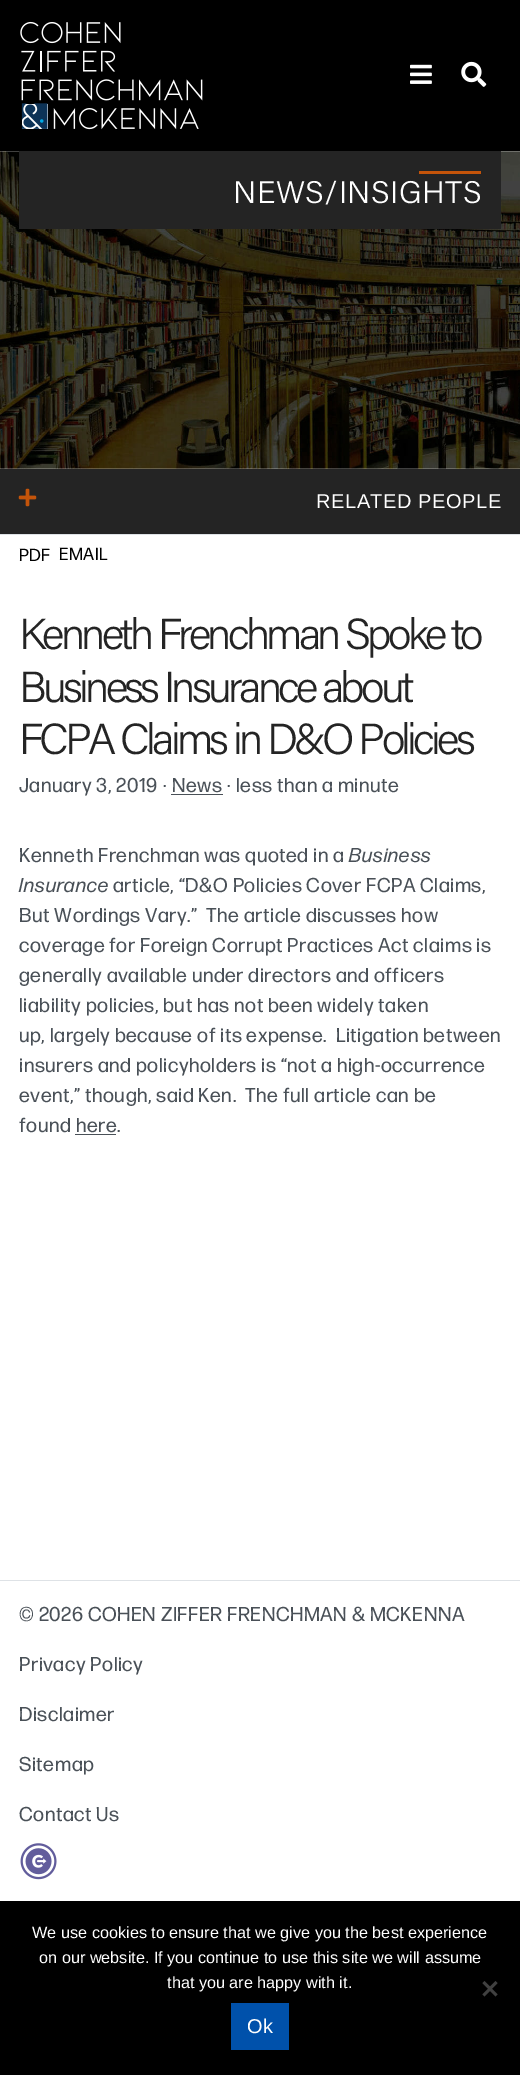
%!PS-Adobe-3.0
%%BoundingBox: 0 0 520 2075
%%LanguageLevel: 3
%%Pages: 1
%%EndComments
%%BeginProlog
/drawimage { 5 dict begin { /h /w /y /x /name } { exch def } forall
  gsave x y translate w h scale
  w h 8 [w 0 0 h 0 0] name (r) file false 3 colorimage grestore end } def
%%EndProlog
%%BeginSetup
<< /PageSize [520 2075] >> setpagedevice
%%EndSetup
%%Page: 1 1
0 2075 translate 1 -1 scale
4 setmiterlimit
1 setgray
0 0 520 2075 rectfill
0 setgray
0 0 520 151 rectfill
(images/1.raw) 20 21 183 109 drawimage
(images/2.raw) 410 64 22 20 drawimage
(images/3.raw) 461 61 26 26 drawimage
(images/4.raw) 0 151 520 318 drawimage
0.141 setgray
19 151 482 78 rectfill
0.769 0.329 0.039 setrgbcolor
419 171 62 3 rectfill
0.871 0.886 0.902 setrgbcolor
0 534 520 1 rectfill
0.141 setgray
0 469 520 65 rectfill
(images/5.raw) 18 488 19 19 drawimage
0.286 0.314 0.341 setrgbcolor
171 794 52 1 rectfill
75 1134 41 1 rectfill
0.871 0.886 0.902 setrgbcolor
0 1580 520 1 rectfill
(images/6.raw) 20 1843 37 37 drawimage
0 setgray
0 1901 520 174 rectfill
0.251 setgray
newpath 495.5 1981 moveto 497.5 1983 lineto 484.5 1996.5 lineto 482.5 1994.5 lineto closepath fill
newpath 482.5 1983 moveto 484.5 1981 lineto 497.5 1994.5 lineto 495.5 1996.5 lineto closepath fill
0 0.318 0.671 setrgbcolor
231 2003 58 47 rectfill
/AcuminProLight-Light [31.25 0 0 -31.25 0 0] selectfont
1 setgray
233 203 moveto 0.55 0 (NEWS/INSIGHTS) ashow
/LiberationSans-Regular [20 0 0 -20 0 0] selectfont
316 508 moveto 0.55 0 (RELATED PEOPLE) ashow
/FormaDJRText-Regular [17.5 0 0 -17.5 0 0] selectfont
0 setgray
19 561 moveto (PDF) show
59 560 moveto 0.55 0 (EMAIL) ashow
/AcuminProLight-Light [43.5 0 0 -43.5 0 0] selectfont
0.141 setgray
19 649 moveto -3.75 0 (Kenneth Frenchman Spoke to) ashow
19 702 moveto -3.75 0 (Business Insurance about) ashow
19 754 moveto -3.75 0 (FCPA Claims in D&O Policies) ashow
/FormaDJRText-Regular [20 0 0 -20 0 0] selectfont
0.286 0.314 0.341 setrgbcolor
19 792 moveto 0.55 0 (January 3, 2019) ashow
163 792 moveto 0.55 0 (·) ashow
172 792 moveto 0.55 0 (News) ashow
227 792 moveto 0.55 0 (·) ashow
236 792 moveto 0.55 0 (less than a minute) ashow
19 862 moveto 0.55 0 (Kenneth Frenchman was quoted in a) ashow
/FormaDJRText-Italic [20 0 0 -20 0 0] selectfont
349 862 moveto 0.55 0 (Business) ashow
19 892 moveto 0.55 0 (Insurance) ashow
/FormaDJRText-Regular [20 0 0 -20 0 0] selectfont
113 892 moveto 0.55 0 (article, “D&O Policies Cover FCPA Claims,) ashow
19 922 moveto 0.55 0 (But Wordings Vary.”  The article discusses how) ashow
19 952 moveto 0.55 0 (coverage for Foreign Corrupt Practices Act claims is) ashow
19 982 moveto 0.55 0 (generally available under directors and officers) ashow
19 1012 moveto 0.55 0 (liability policies, but has not been widely taken) ashow
19 1042 moveto 0.55 0 (up, largely because of its expense.  Litigation between) ashow
19 1072 moveto 0.55 0 (insurers and policyholders is “not a high-occurrence) ashow
19 1102 moveto 0.55 0 (event,” though, said Ken.  The full article can be) ashow
19 1132 moveto 0.55 0 (found here.) ashow
19 1621 moveto 0.55 0 (© 2026 COHEN ZIFFER FRENCHMAN & MCKENNA) ashow
19 1671 moveto 0.55 0 (Privacy Policy) ashow
19 1721 moveto 0.55 0 (Disclaimer) ashow
19 1771 moveto 0.55 0 (Sitemap) ashow
19 1821 moveto 0.55 0 (Contact Us) ashow
/LiberationSans-Regular [16.25 0 0 -16.25 0 0] selectfont
1 setgray
32 1938 moveto (We use cookies to ensure that we give you the best experience) show
39 1963 moveto (on our website. If you continue to use this site we will assume) show
167 1988 moveto (that you are happy with it.) show
/LiberationSans-Regular [20 0 0 -20 0 0] selectfont
247 2033 moveto (Ok) show
showpage
%%EOF
